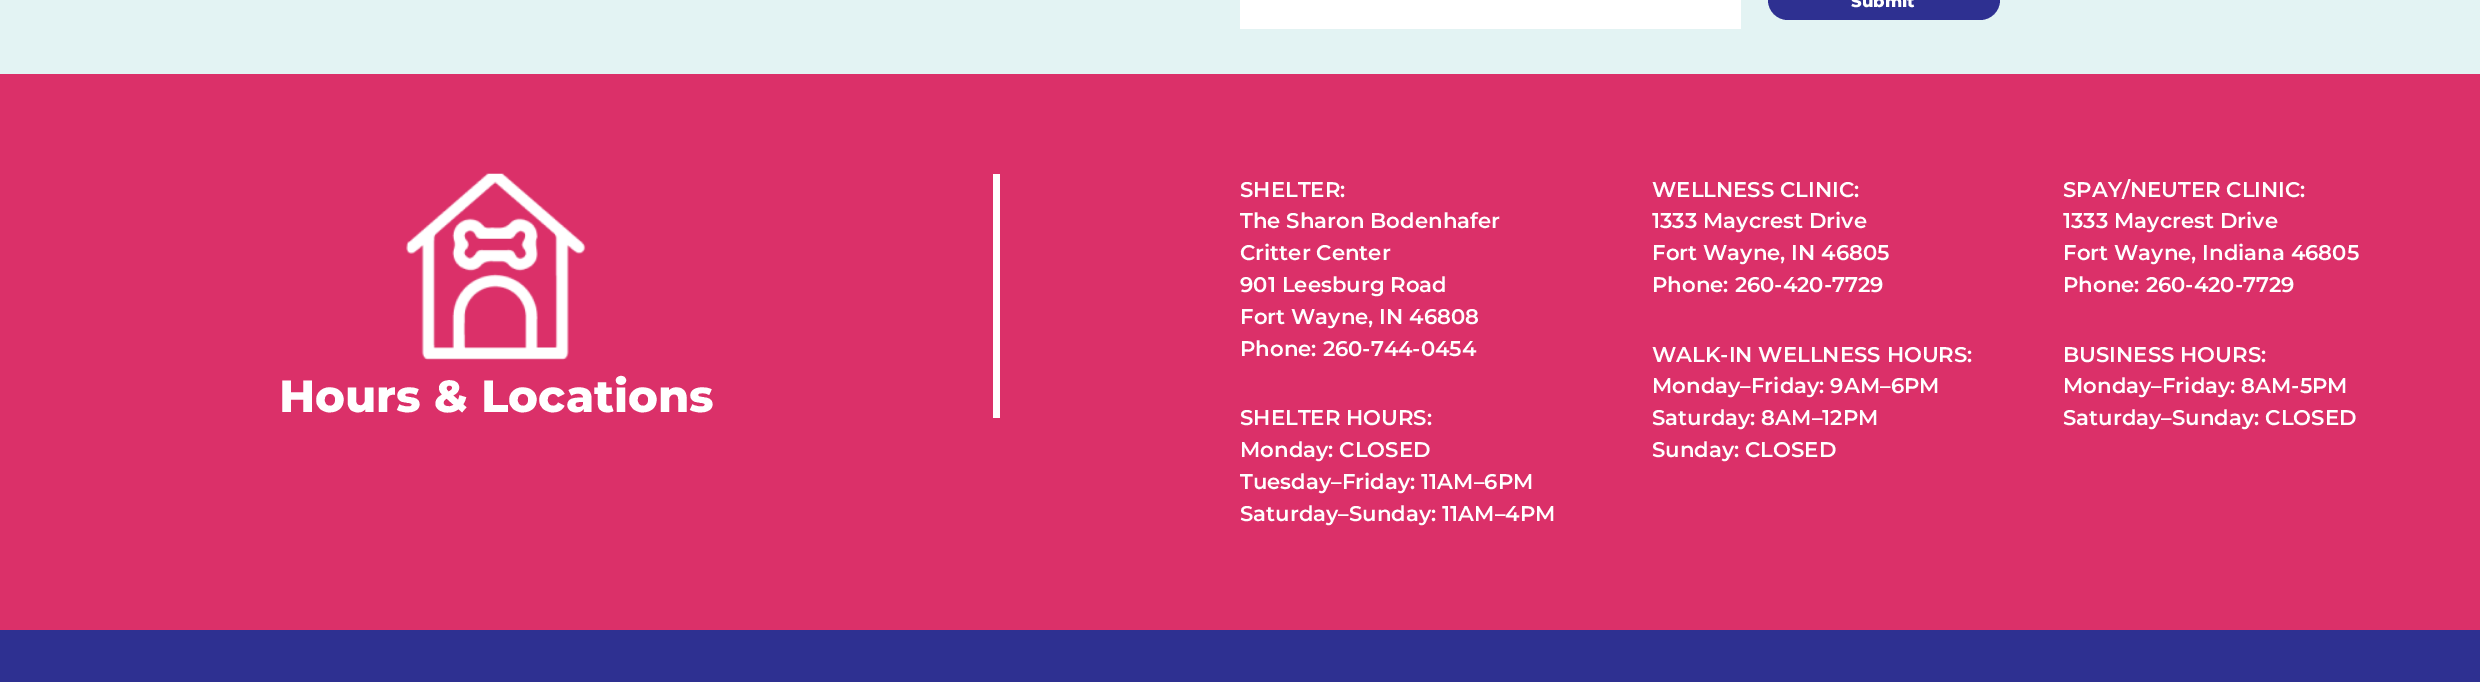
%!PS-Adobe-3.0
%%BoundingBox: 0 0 2480 682
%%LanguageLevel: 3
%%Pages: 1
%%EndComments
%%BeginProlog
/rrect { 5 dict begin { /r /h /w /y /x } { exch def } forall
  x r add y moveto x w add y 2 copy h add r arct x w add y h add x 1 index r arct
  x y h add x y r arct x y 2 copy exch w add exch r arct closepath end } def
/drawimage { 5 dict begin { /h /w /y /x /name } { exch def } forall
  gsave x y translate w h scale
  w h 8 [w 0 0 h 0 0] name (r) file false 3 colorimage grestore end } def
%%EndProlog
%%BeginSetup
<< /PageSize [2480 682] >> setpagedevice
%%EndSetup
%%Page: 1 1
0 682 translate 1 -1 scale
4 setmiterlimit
0.89 0.953 0.953 setrgbcolor
0 0 2480 682 rectfill
1 setgray
1240 0 501 29 rectfill
0.18 0.188 0.569 setrgbcolor
1768 -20 232 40 20 rrect fill
0.859 0.188 0.412 setrgbcolor
0 74 2480 556 rectfill
1 setgray
993 174 7 244 rectfill
(images/1.raw) 406 173 180 187 drawimage
0.18 0.188 0.569 setrgbcolor
0 630 2480 52 rectfill
/Montserrat-ExtraBold [16.5 0 0 -16.5 0 0] selectfont
1 setgray
1851 7 moveto (Submit) show
/Montserrat-ExtraBold [45 0 0 -45 0 0] selectfont
279 412 moveto (Hours & Locations) show
/Montserrat-SemiBold [21.25 0 0 -21.25 0 0] selectfont
1240 197 moveto (SHELTER:) show
1240 228 moveto (The Sharon Bodenhafer) show
1240 260 moveto (Critter Center) show
1240 292 moveto (901 Leesburg Road) show
1240 324 moveto (Fort Wayne, IN 46808) show
1240 356 moveto (Phone: 260-744-0454) show
1240 425 moveto (SHELTER HOURS:) show
1240 457 moveto (Monday: CLOSED) show
1240 489 moveto (Tuesday–Friday: 11AM–6PM) show
1240 521 moveto (Saturday–Sunday: 11AM–4PM) show
1652 197 moveto (WELLNESS CLINIC:) show
1652 228 moveto (1333 Maycrest Drive) show
1652 260 moveto (Fort Wayne, IN 46805) show
1652 292 moveto (Phone: 260-420-7729) show
1652 362 moveto (WALK-IN WELLNESS HOURS:) show
1652 393 moveto (Monday–Friday: 9AM–6PM) show
1652 425 moveto (Saturday: 8AM–12PM) show
1652 457 moveto (Sunday: CLOSED) show
2063 197 moveto (SPAY/NEUTER CLINIC:) show
2063 228 moveto (1333 Maycrest Drive) show
2063 260 moveto (Fort Wayne, Indiana 46805) show
2063 292 moveto (Phone: 260-420-7729) show
2063 362 moveto (BUSINESS HOURS:) show
2063 393 moveto (Monday–Friday: 8AM-5PM) show
2063 425 moveto (Saturday–Sunday: CLOSED) show
showpage
%%EOF
